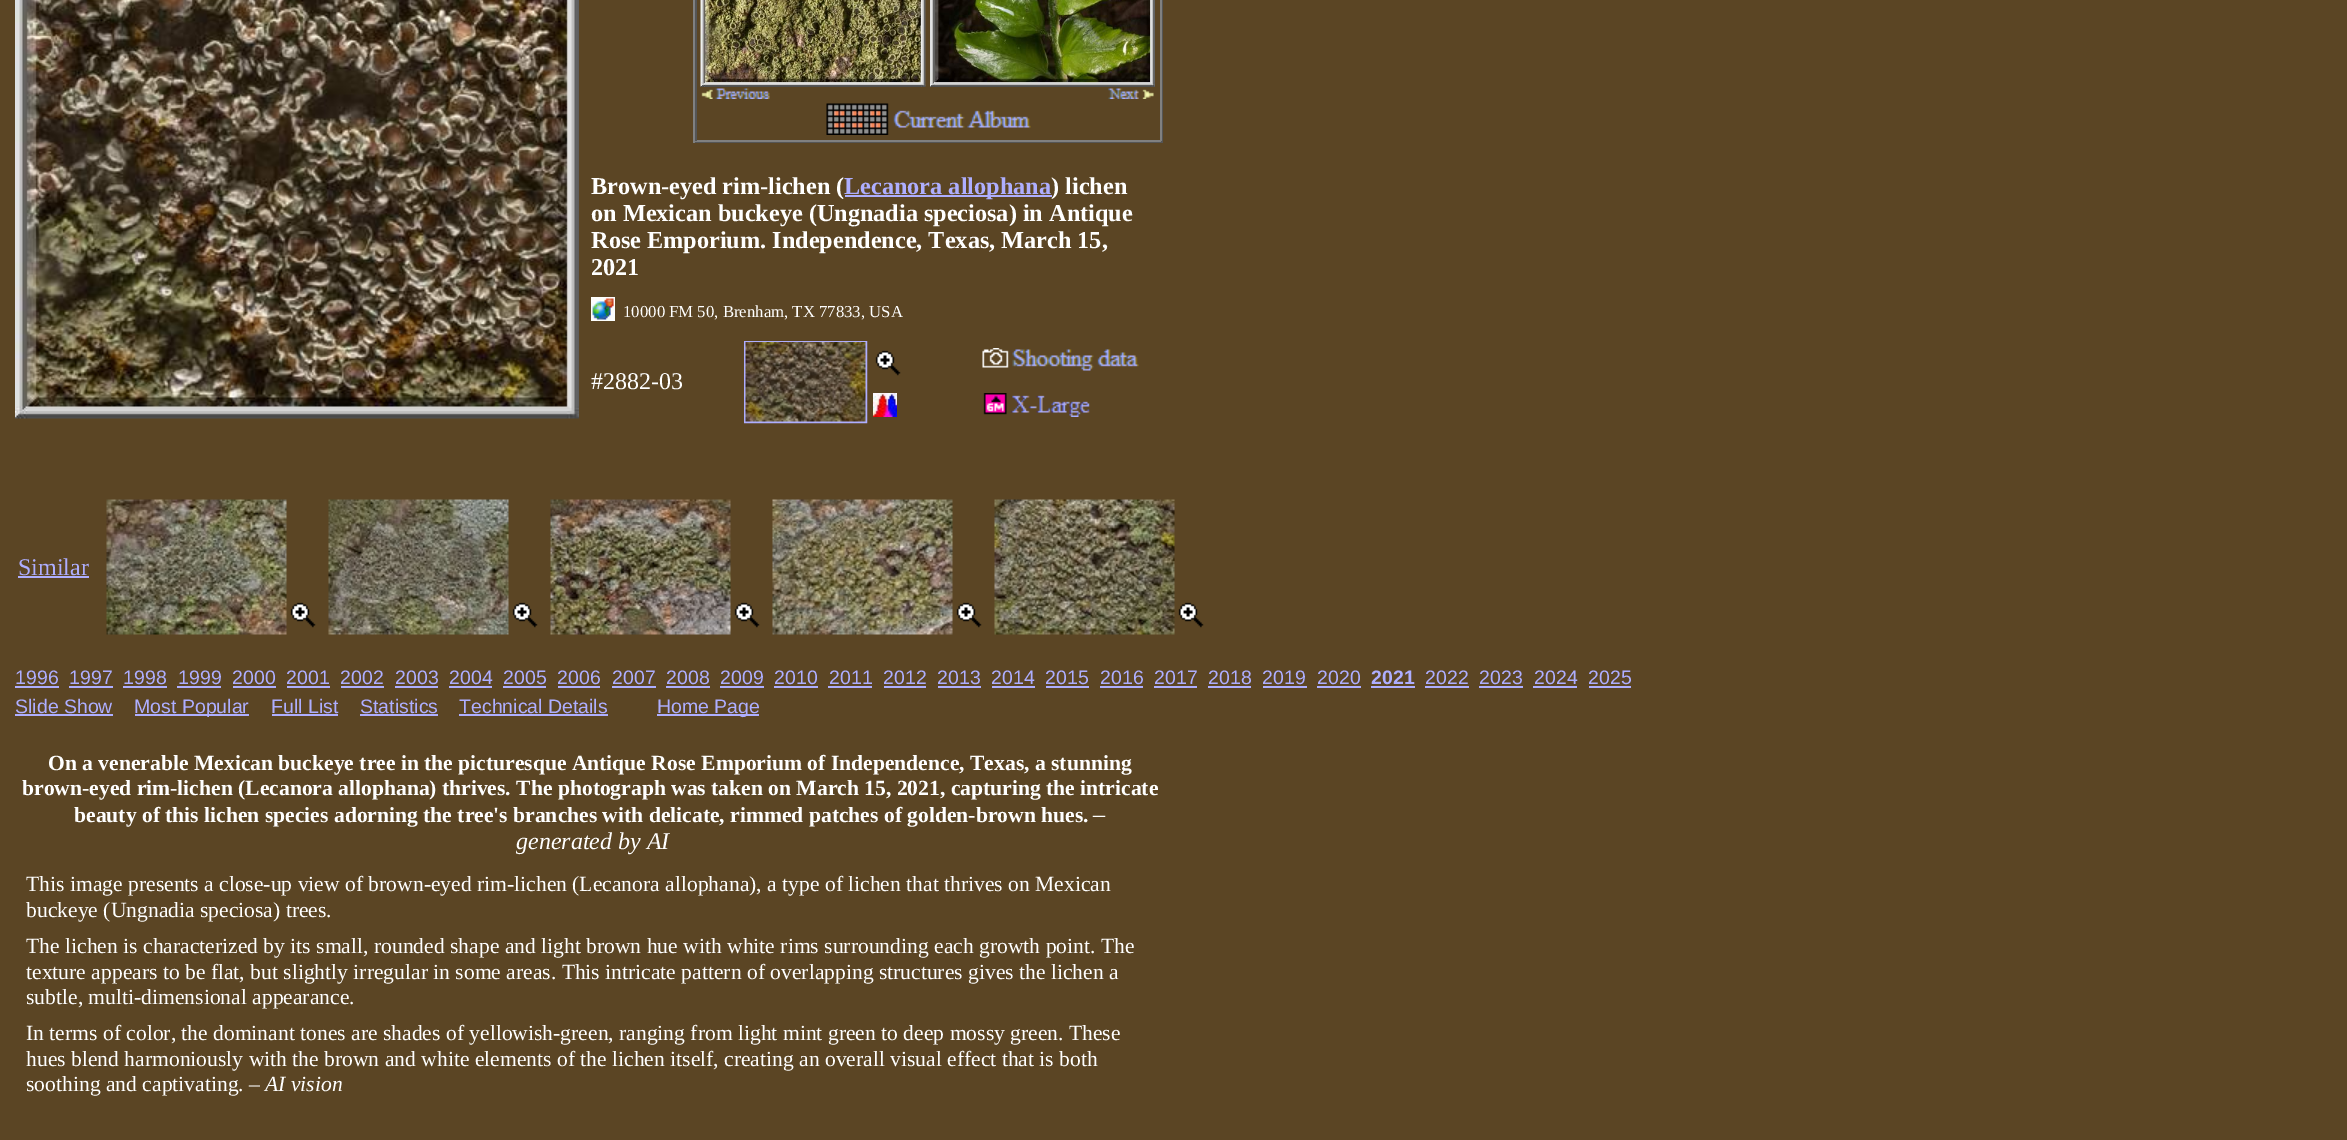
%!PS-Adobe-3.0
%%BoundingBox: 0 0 2347 1140
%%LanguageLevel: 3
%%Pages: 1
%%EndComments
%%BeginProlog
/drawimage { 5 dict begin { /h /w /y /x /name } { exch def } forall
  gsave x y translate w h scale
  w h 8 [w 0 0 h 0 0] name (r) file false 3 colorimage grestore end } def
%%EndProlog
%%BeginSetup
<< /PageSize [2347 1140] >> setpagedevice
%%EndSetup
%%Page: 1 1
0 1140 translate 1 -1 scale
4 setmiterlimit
0.357 0.271 0.141 setrgbcolor
0 0 2347 1140 rectfill
(images/1.raw) 15 0 564 419 drawimage
0.333 setgray
1162 0 1 143 rectfill
693 141 470 2 rectfill
0.502 setgray
693 0 2 143 rectfill
1160 0 2 141 rectfill
695 140 466 2 rectfill
0.333 setgray
695 0 2 141 rectfill
(images/2.raw) 700 0 226 87 drawimage
(images/3.raw) 701 88 69 11 drawimage
(images/4.raw) 930 0 225 87 drawimage
(images/5.raw) 1108 88 46 11 drawimage
(images/6.raw) 826 103 205 32 drawimage
0.682 0.682 1 setrgbcolor
845 195 207 2 rectfill
(images/7.raw) 591 297 24 24 drawimage
2 setlinewidth
745 342 121 80 rectstroke
(images/8.raw) 745 342 121 80 drawimage
(images/9.raw) 875 350 26 26 drawimage
(images/10.raw) 873 393 24 24 drawimage
(images/11.raw) 982 348 157 23 drawimage
(images/12.raw) 983 393 107 24 drawimage
18 576 71 2 rectfill
(images/13.raw) 106 499 181 136 drawimage
(images/14.raw) 290 602 26 26 drawimage
(images/15.raw) 328 499 181 136 drawimage
(images/9.raw) 512 602 26 26 drawimage
(images/16.raw) 550 499 181 136 drawimage
(images/14.raw) 734 602 26 26 drawimage
(images/17.raw) 772 499 181 136 drawimage
(images/9.raw) 956 602 26 26 drawimage
(images/18.raw) 994 499 181 136 drawimage
(images/14.raw) 1178 602 26 26 drawimage
15 686 44 2 rectfill
69 686 44 2 rectfill
123 686 44 2 rectfill
177 686 44 2 rectfill
233 686 43 2 rectfill
287 686 43 2 rectfill
341 686 43 2 rectfill
395 686 43 2 rectfill
449 686 43 2 rectfill
503 686 43 2 rectfill
558 686 42 2 rectfill
612 686 44 2 rectfill
666 686 44 2 rectfill
720 686 44 2 rectfill
774 686 44 2 rectfill
828 686 44 2 rectfill
884 686 42 2 rectfill
938 686 43 2 rectfill
992 686 43 2 rectfill
1046 686 43 2 rectfill
1100 686 43 2 rectfill
1154 686 43 2 rectfill
1208 686 43 2 rectfill
1263 686 44 2 rectfill
1317 686 44 2 rectfill
1371 686 44 2 rectfill
1425 686 44 2 rectfill
1479 686 44 2 rectfill
1533 686 44 2 rectfill
1589 686 42 2 rectfill
15 714 98 2 rectfill
135 714 114 2 rectfill
272 714 66 2 rectfill
360 714 78 2 rectfill
459 714 149 2 rectfill
657 714 102 2 rectfill
/LiberationSerif-Bold [24.25 0 0 -24.25 0 0] selectfont
1 setgray
591 194 moveto (Brown-eyed rim-lichen \() show
0.682 0.682 1 setrgbcolor
844 194 moveto (Lecanora allophana) show
1 setgray
1051 194 moveto (\) lichen) show
591 221 moveto (on Mexican buckeye \(Ungnadia speciosa\) in Antique) show
591 248 moveto (Rose Emporium. Independence, Texas, March 15,) show
591 275 moveto (2021) show
/LiberationSerif-Regular [16.75 0 0 -16.75 0 0] selectfont
623 317 moveto (10000 FM 50, Brenham, TX 77833, USA) show
/LiberationSerif-Regular [24 0 0 -24 0 0] selectfont
591 389 moveto (#2882-03) show
0.682 0.682 1 setrgbcolor
18 575 moveto (Similar) show
/LiberationSans-Regular [19.5 0 0 -19.5 0 0] selectfont
15 684 moveto (1996) show
69 684 moveto (1997) show
123 684 moveto (1998) show
178 684 moveto (1999) show
232 684 moveto (2000) show
286 684 moveto (2001) show
340 684 moveto (2002) show
395 684 moveto (2003) show
449 684 moveto (2004) show
503 684 moveto (2005) show
557 684 moveto (2006) show
612 684 moveto (2007) show
666 684 moveto (2008) show
720 684 moveto (2009) show
774 684 moveto (2010) show
829 684 moveto (2011) show
883 684 moveto (2012) show
937 684 moveto (2013) show
991 684 moveto (2014) show
1045 684 moveto (2015) show
1100 684 moveto (2016) show
1154 684 moveto (2017) show
1208 684 moveto (2018) show
1262 684 moveto (2019) show
1317 684 moveto (2020) show
/LiberationSans-Bold [19.5 0 0 -19.5 0 0] selectfont
1371 684 moveto (2021) show
/LiberationSans-Regular [19.5 0 0 -19.5 0 0] selectfont
1425 684 moveto (2022) show
1479 684 moveto (2023) show
1534 684 moveto (2024) show
1588 684 moveto (2025) show
15 713 moveto (Slide Show) show
134 713 moveto (Most Popular) show
271 713 moveto (Full List) show
360 713 moveto (Statistics) show
459 713 moveto (Technical Details) show
657 713 moveto (Home Page) show
/LiberationSerif-Bold [21.6 0 0 -21.6 0 0] selectfont
1 setgray
48 770 moveto (On a venerable Mexican buckeye tree in the picturesque Antique Rose Emporium of Independence, Texas, a stunning) show
22 795 moveto (brown-eyed rim-lichen \(Lecanora allophana\) thrives. The photograph was taken on March 15, 2021, capturing the intricate) show
74 822 moveto (beauty of this lichen species adorning the tree's branches with delicate, rimmed patches of golden-brown hues.) show
/LiberationSerif-Regular [24 0 0 -24 0 0] selectfont
1093 822 moveto (–) show
/LiberationSerif-Italic [24 0 0 -24 0 0] selectfont
516 849 moveto (generated by AI) show
/LiberationSerif-Regular [21.6 0 0 -21.6 0 0] selectfont
26 891 moveto (This image presents a close-up view of brown-eyed rim-lichen \(Lecanora allophana\), a type of lichen that thrives on Mexican) show
26 917 moveto (buckeye \(Ungnadia speciosa\) trees.) show
26 953 moveto (The lichen is characterized by its small, rounded shape and light brown hue with white rims surrounding each growth point. The) show
26 979 moveto (texture appears to be flat, but slightly irregular in some areas. This intricate pattern of overlapping structures gives the lichen a) show
26 1004 moveto (subtle, multi-dimensional appearance.) show
26 1040 moveto (In terms of color, the dominant tones are shades of yellowish-green, ranging from light mint green to deep mossy green. These) show
26 1066 moveto (hues blend harmoniously with the brown and white elements of the lichen itself, creating an overall visual effect that is both) show
26 1091 moveto (soothing and captivating. –) show
/LiberationSerif-Italic [21.6 0 0 -21.6 0 0] selectfont
265 1091 moveto (AI vision) show
showpage
%%EOF
